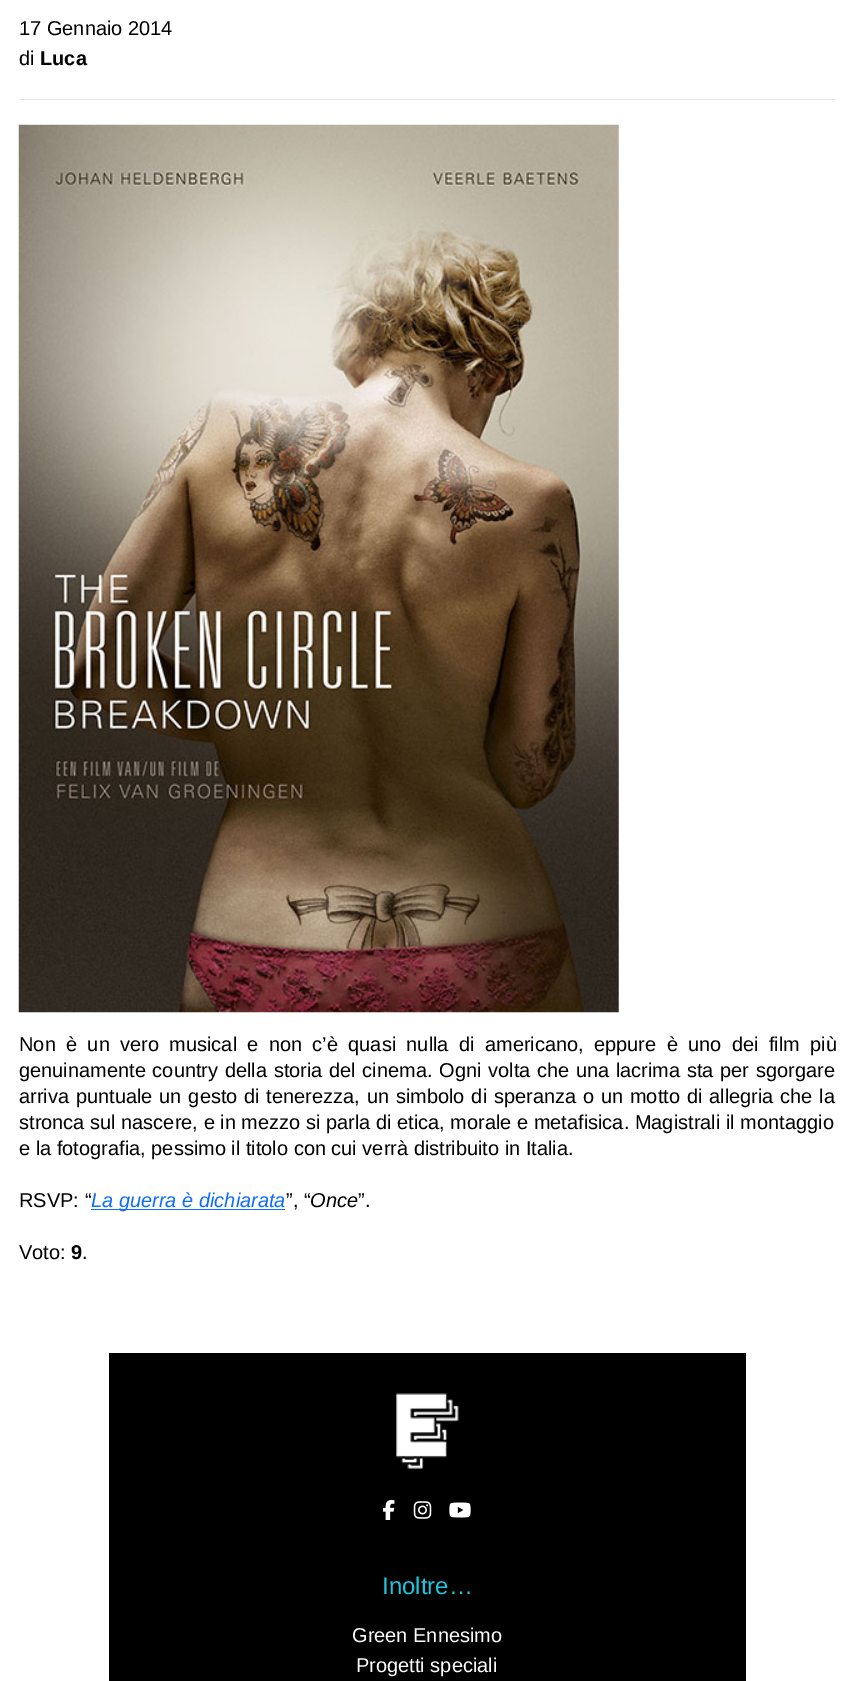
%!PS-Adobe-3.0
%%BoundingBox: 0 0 853 1681
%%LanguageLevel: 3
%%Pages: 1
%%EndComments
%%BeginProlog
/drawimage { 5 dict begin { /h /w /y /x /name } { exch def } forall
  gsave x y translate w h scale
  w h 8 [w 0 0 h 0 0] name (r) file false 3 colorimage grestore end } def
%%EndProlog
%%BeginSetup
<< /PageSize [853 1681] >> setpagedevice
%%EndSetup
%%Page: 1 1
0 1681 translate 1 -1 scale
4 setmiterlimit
1 setgray
0 0 853 1681 rectfill
0.894 setgray
19 99 816 1 rectfill
(images/1.raw) 18 124 601 889 drawimage
0.051 0.431 0.992 setrgbcolor
91 1209 194 1 rectfill
0 setgray
109 1353 637 328 rectfill
(images/2.raw) 396 1393 63 76 drawimage
(images/3.raw) 383 1500 12 20 drawimage
(images/4.raw) 413 1501 19 18 drawimage
(images/5.raw) 449 1502 22 16 drawimage
/LiberationSans-Regular [20 0 0 -20 0 0] selectfont
19 35 moveto (17 Gennaio 2014) show
19 65 moveto (di) show
/LiberationSans-Bold [20 0 0 -20 0 0] selectfont
40 65 moveto (Luca) show
/LiberationSans-Regular [20 0 0 -20 0 0] selectfont
19 1051 moveto 4.75 0 32 (Non è un vero musical e non c’è quasi nulla di americano, eppure è uno dei film più) widthshow
19 1077 moveto 1.1 0 32 (genuinamente country della storia del cinema. Ogni volta che una lacrima sta per sgorgare) widthshow
19 1103 moveto 1.25 0 32 (arriva puntuale un gesto di tenerezza, un simbolo di speranza o un motto di allegria che la) widthshow
19 1129 moveto (stronca sul nascere, e in mezzo si parla di etica, morale e metafisica. Magistrali il montaggio) show
19 1155 moveto (e la fotografia, pessimo il titolo con cui verrà distribuito in Italia.) show
19 1207 moveto (RSVP: “) show
/LiberationSans-Italic [20 0 0 -20 0 0] selectfont
0.051 0.431 0.992 setrgbcolor
91 1207 moveto (La guerra è dichiarata) show
/LiberationSans-Regular [20 0 0 -20 0 0] selectfont
0 setgray
286 1207 moveto (”, “) show
/LiberationSans-Italic [20 0 0 -20 0 0] selectfont
310 1207 moveto (Once) show
/LiberationSans-Regular [20 0 0 -20 0 0] selectfont
358 1207 moveto (”.) show
19 1259 moveto (Voto:) show
/LiberationSans-Bold [20 0 0 -20 0 0] selectfont
71 1259 moveto (9) show
/LiberationSans-Regular [20 0 0 -20 0 0] selectfont
82 1259 moveto (.) show
/LiberationSans-Regular [24 0 0 -24 0 0] selectfont
0.114 0.776 0.875 setrgbcolor
382 1594 moveto (Inoltre…) show
/LiberationSans-Regular [20 0 0 -20 0 0] selectfont
1 setgray
352 1642 moveto (Green Ennesimo) show
356 1672 moveto (Progetti speciali) show
showpage
%%EOF
